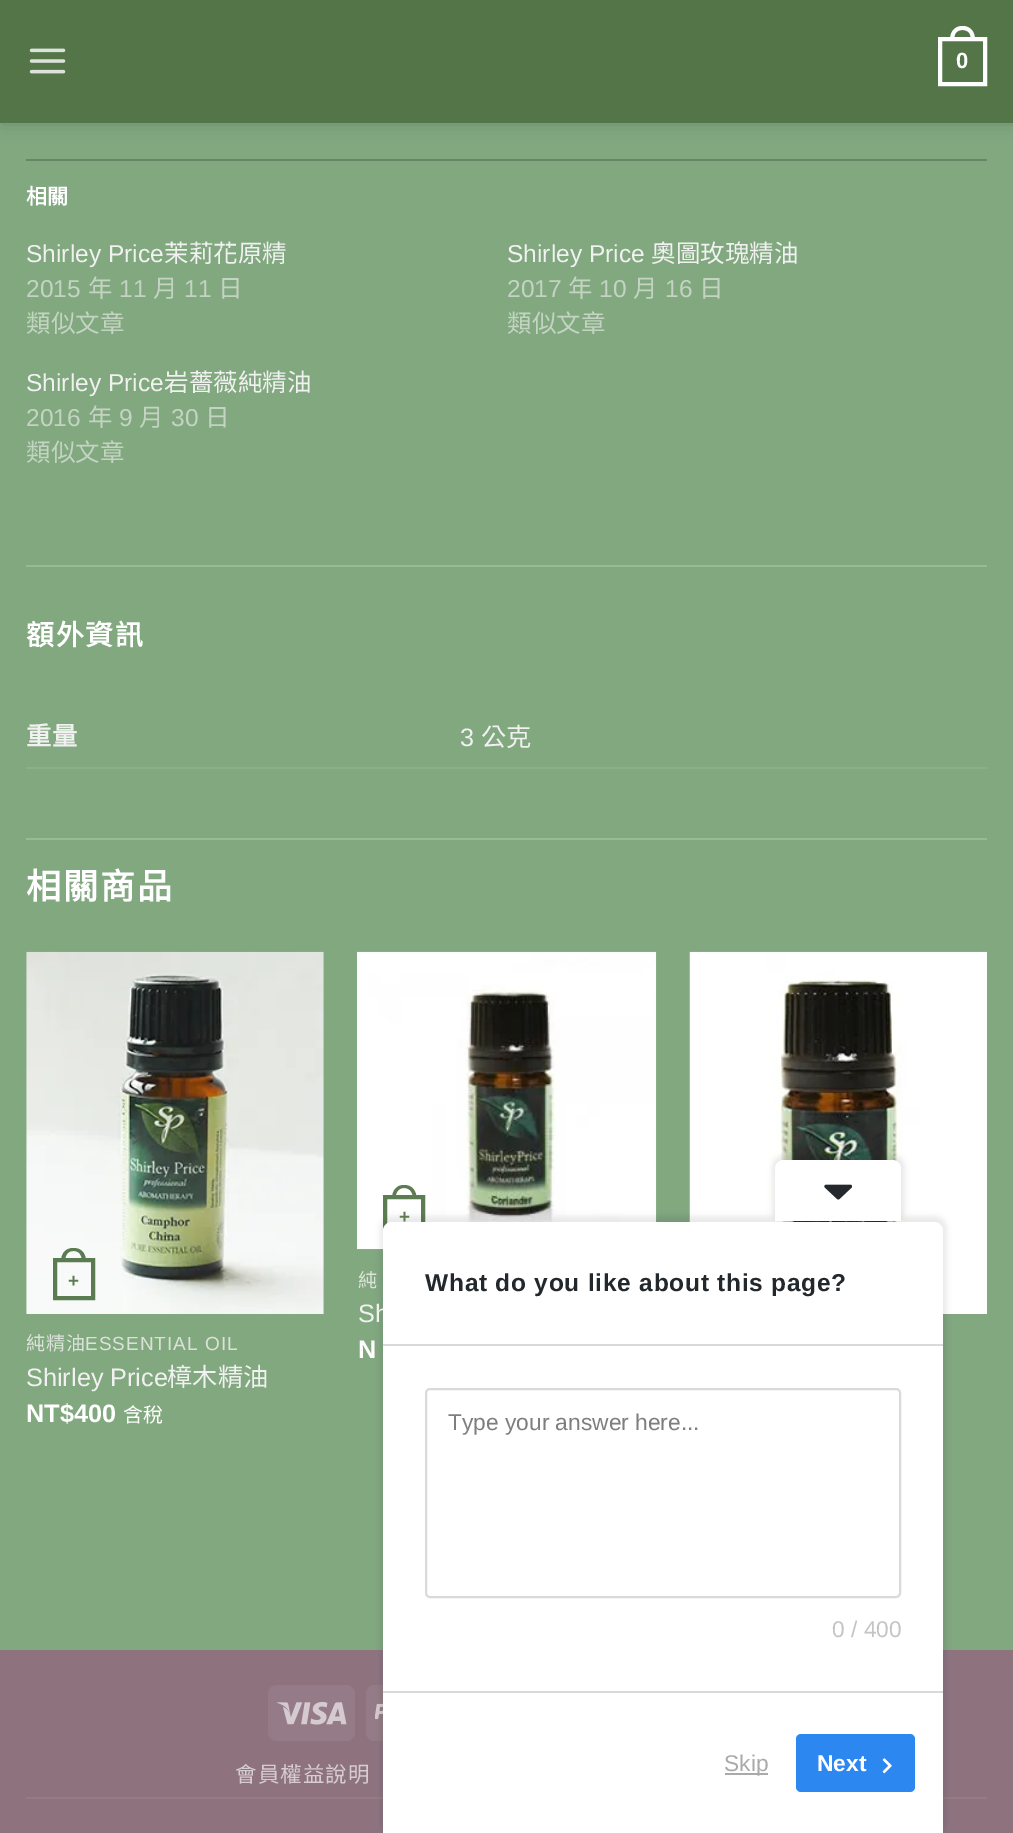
%!PS-Adobe-3.0
%%BoundingBox: 0 0 1013 1833
%%LanguageLevel: 3
%%Pages: 1
%%EndComments
%%BeginProlog
/setalpha { dup .setfillconstantalpha .setstrokeconstantalpha } def
/rrect { 5 dict begin { /r /h /w /y /x } { exch def } forall
  x r add y moveto x w add y 2 copy h add r arct x w add y h add x 1 index r arct
  x y h add x y r arct x y 2 copy exch w add exch r arct closepath end } def
/softshadow { 12 dict begin { /a /b /q /h /w /y /x } { exch def } forall gsave /was 0 def
  9 -2 -9 { dup b mul 4 div /e exch def 1 sub .425 mul 2.718 exch exp 1 add a .99 .min exch div /now exch def
    1 1 now sub 1 was sub div sub setalpha /was now def
    w h .min e 2 mul add 0 gt { x e sub y e sub w e 2 mul add h e 2 mul add
      q e add b .6 mul add w h .min 2 div e add .min 0 .max rrect fill } if } for grestore end } def
/drawimage { 5 dict begin { /h /w /y /x /name } { exch def } forall
  gsave x y translate w h scale
  w h 8 [w 0 0 h 0 0] name (r) file false 3 colorimage grestore end } def
%%EndProlog
%%BeginSetup
<< /PageSize [1013 1833] /PageUsesTransparency true >> setpagedevice
%%EndSetup
%%Page: 1 1
0 .pushpdf14devicefilter
0 1833 translate 1 -1 scale
4 setmiterlimit
0.506 0.659 0.498 setrgbcolor
0 0 1013 1833 rectfill
0 setgray
2 2 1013 122 0 9 0.15 softshadow
0.325 0.459 0.282 setrgbcolor
0 0 1013 123 rectfill
(images/1.raw) 29 48 37 26 drawimage
1 setgray
4 setlinewidth
940 39 45 45 rectstroke
newpath 962.5 26 moveto 971 26 975 32.5 975 40 curveto 950 40 lineto 950 32.5 954 26 962.5 26 curveto closepath 962.5 30 moveto 969 30 971 34.5 971 40 curveto 954 40 lineto 954 34.5 956 30 962.5 30 curveto closepath eofill
0.404 0.525 0.4 setrgbcolor
26 159 961 2 rectfill
0.604 0.725 0.6 setrgbcolor
26 565 961 2 rectfill
0.545 0.686 0.537 setrgbcolor
26 767 961 2 rectfill
0.604 0.725 0.6 setrgbcolor
26 838 961 2 rectfill
(images/2.raw) 26 951 298 363 drawimage
0.95 setalpha
0.325 0.459 0.282 setrgbcolor
55 1260 38 38 rectstroke
1 setalpha
0.357 0.486 0.318 setrgbcolor
newpath 73.5 1248 moveto 82 1248 86 1254 86 1262 curveto 61 1262 lineto 61 1254 65 1248 73.5 1248 curveto closepath 73.5 1251 moveto 80 1251 82 1256 82 1262 curveto 65 1262 lineto 65 1256 67 1251 73.5 1251 curveto closepath eofill
(images/3.raw) 357 951 300 299 drawimage
0.361 0.486 0.318 setrgbcolor
385 1197 38 38 rectstroke
newpath 404 1185 moveto 412.5 1185 416.5 1191 416.5 1199 curveto 392 1199 lineto 392 1191 396 1185 404 1185 curveto closepath 404 1188 moveto 410.5 1188 413 1193 413 1199 curveto 395.5 1199 lineto 395.5 1193 398 1188 404 1188 curveto closepath eofill
(images/4.raw) 689 951 298 363 drawimage
0.557 0.451 0.498 setrgbcolor
0 1650 1013 183 rectfill
0.584 0.482 0.529 setrgbcolor
268 1685 87 56 9 rrect fill
(images/5.raw) 277 1701 70 24 drawimage
366 1685 87 56 9 rrect fill
(images/6.raw) 375 1703 8 17 drawimage
0.584 0.486 0.529 setrgbcolor
26 1797 961 2 rectfill
0 setgray
380 1216 567 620 12 2.5 0.07 softshadow
/LiberationSans-Bold [22 0 0 -22 0 0] selectfont
1 setgray
956 68 moveto (0) show
/NotoSansCJKTC-Bold [21 0 0 -21 0 0] selectfont
26 204 moveto (相關) show
/LiberationSans-Regular [24.5 0 0 -24.5 0 0] selectfont
0.945 setgray
26 262 moveto (Shirley Price) show
/NotoSansCJKTC-Regular [24.5 0 0 -24.5 0 0] selectfont
164 262 moveto (茉莉花原精) show
/LiberationSans-Regular [24.5 0 0 -24.5 0 0] selectfont
0.769 0.831 0.765 setrgbcolor
26 297 moveto (2015) show
/NotoSansCJKTC-Regular [24.5 0 0 -24.5 0 0] selectfont
88 297 moveto (年) show
/LiberationSans-Regular [24.5 0 0 -24.5 0 0] selectfont
119 297 moveto (11) show
/NotoSansCJKTC-Regular [24.5 0 0 -24.5 0 0] selectfont
153 297 moveto (月) show
/LiberationSans-Regular [24.5 0 0 -24.5 0 0] selectfont
184 297 moveto (11) show
/NotoSansCJKTC-Regular [24.5 0 0 -24.5 0 0] selectfont
218 297 moveto (日) show
26 332 moveto (類似文章) show
/LiberationSans-Regular [24.5 0 0 -24.5 0 0] selectfont
0.945 setgray
507 262 moveto (Shirley Price) show
/NotoSansCJKTC-Regular [24.5 0 0 -24.5 0 0] selectfont
651 262 moveto (奧圖玫瑰精油) show
/LiberationSans-Regular [24.5 0 0 -24.5 0 0] selectfont
0.769 0.831 0.765 setrgbcolor
507 297 moveto (2017) show
/NotoSansCJKTC-Regular [24.5 0 0 -24.5 0 0] selectfont
568 297 moveto (年) show
/LiberationSans-Regular [24.5 0 0 -24.5 0 0] selectfont
599 297 moveto (10) show
/NotoSansCJKTC-Regular [24.5 0 0 -24.5 0 0] selectfont
633 297 moveto (月) show
/LiberationSans-Regular [24.5 0 0 -24.5 0 0] selectfont
665 297 moveto (16) show
/NotoSansCJKTC-Regular [24.5 0 0 -24.5 0 0] selectfont
699 297 moveto (日) show
gsave
508 306 432 35 rectclip
507 332 moveto (類似文章) show
grestore
/LiberationSans-Regular [24.5 0 0 -24.5 0 0] selectfont
0.945 setgray
26 391 moveto (Shirley Price) show
/NotoSansCJKTC-Regular [24.5 0 0 -24.5 0 0] selectfont
164 391 moveto (岩薔薇純精油) show
/LiberationSans-Regular [24.5 0 0 -24.5 0 0] selectfont
0.769 0.831 0.765 setrgbcolor
26 426 moveto (2016) show
/NotoSansCJKTC-Regular [24.5 0 0 -24.5 0 0] selectfont
88 426 moveto (年) show
/LiberationSans-Regular [24.5 0 0 -24.5 0 0] selectfont
119 426 moveto (9) show
/NotoSansCJKTC-Regular [24.5 0 0 -24.5 0 0] selectfont
139 426 moveto (月) show
/LiberationSans-Regular [24.5 0 0 -24.5 0 0] selectfont
171 426 moveto (30) show
/NotoSansCJKTC-Regular [24.5 0 0 -24.5 0 0] selectfont
205 426 moveto (日) show
26 461 moveto (類似文章) show
/NotoSansCJKTC-Bold [28 0 0 -28 0 0] selectfont
1 setgray
26 645 moveto 1.5 0 (額外資訊) ashow
/NotoSansCJKTC-Bold [25.25 0 0 -25.25 0 0] selectfont
0.945 setgray
26 745 moveto 1 0 (重量) ashow
/LiberationSans-Regular [25.25 0 0 -25.25 0 0] selectfont
460 746 moveto (3) show
/NotoSansCJKTC-Regular [25.25 0 0 -25.25 0 0] selectfont
481 746 moveto (公克) show
/NotoSansCJKTC-Bold [35 0 0 -35 0 0] selectfont
1 setgray
26 899 moveto 2 0 (相關商品) ashow
/LiberationSans-Bold [19 0 0 -19 0 0] selectfont
0.357 0.486 0.318 setrgbcolor
68 1287 moveto (+) show
/NotoSansCJKTC-Regular [19 0 0 -19 0 0] selectfont
0.859 0.886 0.855 setrgbcolor
26 1350 moveto 1 0 (純精油) ashow
/LiberationSans-Regular [19 0 0 -19 0 0] selectfont
85 1350 moveto 1 0 (ESSENTIAL OIL) ashow
/LiberationSans-Regular [25.25 0 0 -25.25 0 0] selectfont
0.945 setgray
26 1386 moveto (Shirley Price) show
/NotoSansCJKTC-Regular [25.25 0 0 -25.25 0 0] selectfont
167 1386 moveto (樟木精油) show
/LiberationSans-Bold [25.25 0 0 -25.25 0 0] selectfont
1 setgray
26 1422 moveto (NT$400) show
/NotoSansCJKTC-Regular [20 0 0 -20 0 0] selectfont
123 1422 moveto (含稅) show
/LiberationSans-Bold [19 0 0 -19 0 0] selectfont
0.357 0.486 0.318 setrgbcolor
399 1223 moveto (+) show
/NotoSansCJKTC-Regular [19 0 0 -19 0 0] selectfont
0.859 0.886 0.855 setrgbcolor
358 1287 moveto 1 0 (純) ashow
/LiberationSans-Regular [25.25 0 0 -25.25 0 0] selectfont
0.945 setgray
358 1322 moveto (Sh) show
/LiberationSans-Bold [25.25 0 0 -25.25 0 0] selectfont
1 setgray
358 1358 moveto (N) show
/NotoSansCJKTC-Regular [21.5 0 0 -21.5 0 0] selectfont
0.839 0.804 0.82 setrgbcolor
235 1782 moveto 1 0 (會員權益說明) ashow
1 setgray
newpath 392 1222 moveto 934 1222 lineto 939 1222 943 1226 943 1231 curveto 943 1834 lineto 383 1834 lineto 383 1231 lineto 383 1226 387 1222 392 1222 curveto closepath fill
gsave
newpath 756.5 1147.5 moveto 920 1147.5 lineto 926.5 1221 lineto 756.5 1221 lineto closepath clip newpath
0 setgray
772 1155 133 68 12 2.5 0.07 softshadow
grestore
newpath 784 1160 moveto 892 1160 lineto 897 1160 901 1164 901 1169 curveto 901 1221 lineto 775 1221 lineto 775 1169 lineto 775 1164 779 1160 784 1160 curveto closepath fill
(images/7.raw) 824 1184 28 16 drawimage
/LiberationSans-Bold [24.5 0 0 -24.5 0 0] selectfont
0.137 0.157 0.176 setrgbcolor
425 1291 moveto 0.75 0 (What do you like about this page?) ashow
0.851 setgray
383 1344 560 2 rectfill
383 1691 560 2 rectfill
0.855 setgray
2 setlinewidth
426 1389 474 208 4 rrect stroke
/LiberationSans-Regular [22.75 0 0 -22.75 0 0] selectfont
0.494 setgray
448 1430 moveto (Type your answer here...) show
0.769 setgray
832 1637 moveto (0 / 400) show
0.667 setgray
725 1773 43 2 rectfill
724 1771 moveto (Skip) show
0.176 0.529 0.945 setrgbcolor
796 1734 119 58 5 rrect fill
/LiberationSans-Bold [22.75 0 0 -22.75 0 0] selectfont
1 setgray
817 1771 moveto (Next) show
(images/8.raw) 882 1758 10 16 drawimage
.poppdf14devicefilter showpage
%%EOF
